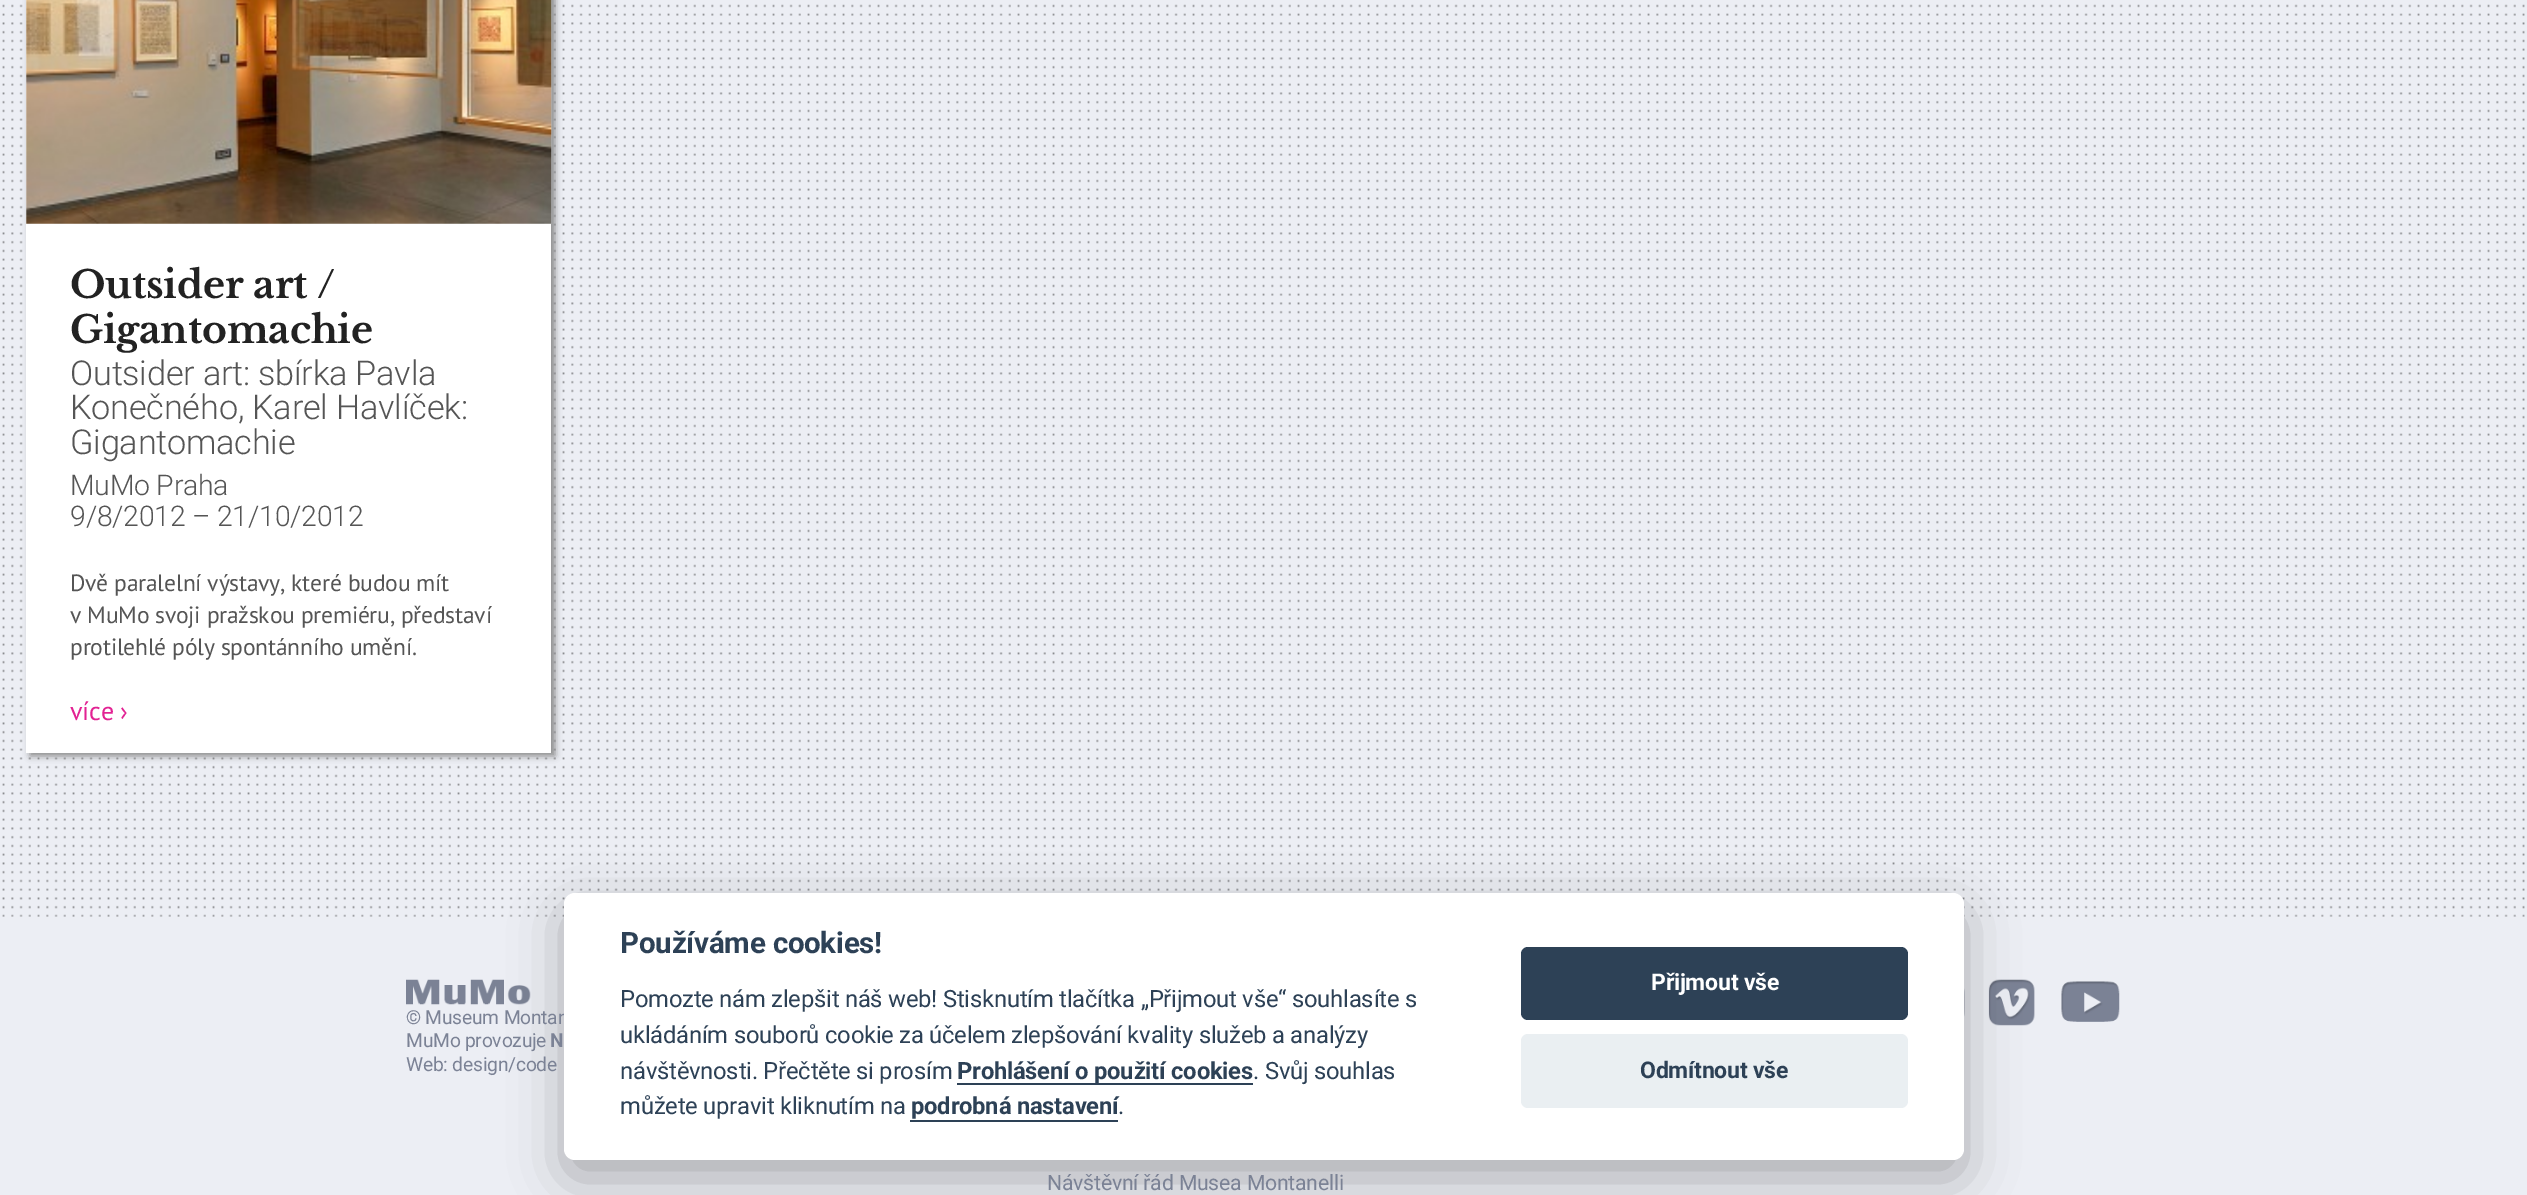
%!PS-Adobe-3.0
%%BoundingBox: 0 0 2527 1195
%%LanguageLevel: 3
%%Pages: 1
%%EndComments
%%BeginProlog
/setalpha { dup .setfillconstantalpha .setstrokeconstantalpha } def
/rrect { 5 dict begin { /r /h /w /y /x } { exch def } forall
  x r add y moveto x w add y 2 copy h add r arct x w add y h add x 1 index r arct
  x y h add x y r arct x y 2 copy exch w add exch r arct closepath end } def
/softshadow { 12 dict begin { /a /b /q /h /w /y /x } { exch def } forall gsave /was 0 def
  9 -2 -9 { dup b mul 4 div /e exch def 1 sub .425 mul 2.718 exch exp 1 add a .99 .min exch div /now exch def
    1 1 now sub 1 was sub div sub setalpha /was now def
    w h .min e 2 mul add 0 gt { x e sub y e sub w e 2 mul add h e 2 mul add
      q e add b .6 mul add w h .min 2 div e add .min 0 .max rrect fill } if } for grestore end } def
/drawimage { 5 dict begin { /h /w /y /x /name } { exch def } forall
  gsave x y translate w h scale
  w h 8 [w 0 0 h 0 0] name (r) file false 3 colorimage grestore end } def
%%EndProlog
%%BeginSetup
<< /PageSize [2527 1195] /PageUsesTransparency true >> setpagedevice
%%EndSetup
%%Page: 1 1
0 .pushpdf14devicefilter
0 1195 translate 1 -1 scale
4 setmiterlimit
0.925 0.933 0.957 setrgbcolor
0 0 2527 1195 rectfill
(images/1.raw) 2 4 2523 913 drawimage
0.533 setgray
30 -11 525 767 0 3.5 1 softshadow
1 setgray
26 0 525 753 rectfill
(images/2.raw) 26 0 526 224 drawimage
(images/3.raw) 1964 988 1 29 drawimage
(images/4.raw) 1988 979 47 47 drawimage
(images/6.raw) 406 979 125 26 drawimage
0.008 0.008 0.012 setrgbcolor
564 910 1400 268 11 26 0.28 softshadow
(images/5.raw) 2061 981 59 41 drawimage
/LibreBaskerville-Bold [37.75 0 0 -37.75 0 0] selectfont
0.133 setgray
70 298 moveto -0.23 0 (Outsider art /) ashow
70 343 moveto -0.23 0 (Gigantomachie) ashow
/Roboto-Light [34.25 0 0 -34.25 0 0] selectfont
0.333 setgray
70 385 moveto -0.23 0 (Outsider art: sbírka Pavla) ashow
70 419 moveto -0.23 0 (Konečného, Karel Havlíček:) ashow
70 454 moveto -0.23 0 (Gigantomachie) ashow
/Roboto-Light [28.4 0 0 -28.4 0 0] selectfont
70 495 moveto -0.23 0 (MuMo Praha) ashow
70 526 moveto -0.23 0 (9/8/2012 – 21/10/2012) ashow
/PTSans-Regular [23.6 0 0 -23.6 0 0] selectfont
70 591 moveto -0.23 0 (Dvě paralelní výstavy, které budou mít) ashow
70 623 moveto -0.23 0 (v MuMo svoji pražskou premiéru, představí) ashow
70 655 moveto -0.23 0 (protilehlé póly spontánního umění.) ashow
/PTSans-Regular [26 0 0 -26 0 0] selectfont
0.886 0.133 0.576 setrgbcolor
70 720 moveto -0.23 0 (více ›) ashow
/Roboto-Regular [19.25 0 0 -19.25 0 0] selectfont
0.482 0.51 0.584 setrgbcolor
406 1024 moveto -0.23 0 (© Museum Montan) ashow
1 setgray
564 893 1400 267 11 rrect fill
0.176 0.255 0.337 setrgbcolor
1521 947 387 73 7 rrect fill
/Roboto-Bold [23 0 0 -23 0 0] selectfont
1 setgray
1651 990 moveto -0.23 0 (Přijmout vše) ashow
/Roboto-Bold [23.8 0 0 -23.8 0 0] selectfont
0.176 0.255 0.337 setrgbcolor
911 1114 moveto -0.23 0 (podrobná nastavení) ashow
/Roboto-Regular [23.8 0 0 -23.8 0 0] selectfont
1118 1114 moveto -0.23 0 (.) ashow
910 1120 208 2 rectfill
620 1114 moveto -0.23 0 (můžete upravit kliknutím na) ashow
1253 1079 moveto -0.23 0 (. Svůj souhlas) ashow
957 1083 296 2 rectfill
/Roboto-Bold [23.8 0 0 -23.8 0 0] selectfont
957 1079 moveto -0.23 0 (Prohlášení o použití cookies) ashow
/Roboto-Regular [23.8 0 0 -23.8 0 0] selectfont
620 1079 moveto -0.23 0 (návštěvnosti. Přečtěte si prosím) ashow
620 1043 moveto -0.23 0 (ukládáním souborů cookie za účelem zlepšování kvality služeb a analýzy) ashow
620 1007 moveto -0.23 0 (Pomozte nám zlepšit náš web! Stisknutím tlačítka „Přijmout vše“ souhlasíte s) ashow
/Roboto-Bold [29.5 0 0 -29.5 0 0] selectfont
620 953 moveto -0.23 0 (Používáme cookies!) ashow
0.918 0.937 0.949 setrgbcolor
1521 1034 387 74 7 rrect fill
/Roboto-Bold [23 0 0 -23 0 0] selectfont
0.176 0.255 0.337 setrgbcolor
1640 1078 moveto -0.23 0 (Odmítnout vše) ashow
/Roboto-Regular [19.25 0 0 -19.25 0 0] selectfont
0.482 0.51 0.584 setrgbcolor
406 1047 moveto -0.23 0 (MuMo provozuje) ashow
/Roboto-Bold [19.25 0 0 -19.25 0 0] selectfont
550 1047 moveto -0.23 0 (N) ashow
/Roboto-Regular [19.25 0 0 -19.25 0 0] selectfont
406 1071 moveto -0.23 0 (Web: design/code) ashow
/Roboto-Regular [21.25 0 0 -21.25 0 0] selectfont
1047 1190 moveto -0.23 0 (Návštěvní řád Musea Montanelli) ashow
.poppdf14devicefilter showpage
%%EOF
